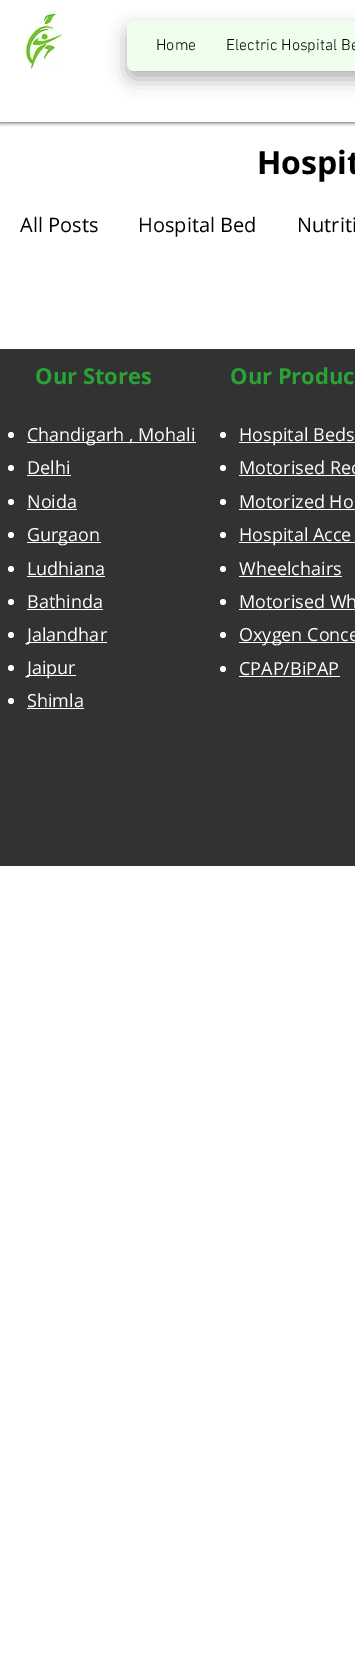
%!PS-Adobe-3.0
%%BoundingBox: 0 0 355 1661
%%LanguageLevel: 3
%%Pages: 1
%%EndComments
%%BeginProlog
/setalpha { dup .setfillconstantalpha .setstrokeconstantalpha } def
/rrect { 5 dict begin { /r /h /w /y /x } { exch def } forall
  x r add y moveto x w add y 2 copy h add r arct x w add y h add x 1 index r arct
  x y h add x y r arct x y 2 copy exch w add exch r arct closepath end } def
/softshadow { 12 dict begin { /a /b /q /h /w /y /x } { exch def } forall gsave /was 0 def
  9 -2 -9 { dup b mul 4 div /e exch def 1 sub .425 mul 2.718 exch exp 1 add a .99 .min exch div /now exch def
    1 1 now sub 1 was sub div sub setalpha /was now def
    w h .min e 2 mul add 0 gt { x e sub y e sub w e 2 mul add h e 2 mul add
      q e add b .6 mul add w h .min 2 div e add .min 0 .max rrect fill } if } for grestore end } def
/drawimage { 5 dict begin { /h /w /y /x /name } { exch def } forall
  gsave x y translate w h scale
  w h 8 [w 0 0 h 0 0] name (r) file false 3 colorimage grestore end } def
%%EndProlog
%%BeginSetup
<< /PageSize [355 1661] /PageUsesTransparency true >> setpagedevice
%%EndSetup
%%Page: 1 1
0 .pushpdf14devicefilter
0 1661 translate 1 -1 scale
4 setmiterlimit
1 setgray
0 0 355 1661 rectfill
gsave
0 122 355 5 rectclip
0 setgray
0 1 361 122 0 2 0.6 softshadow
grestore
0 setgray
127 29 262 50 7 9 0.32 softshadow
0.937 1 0.933 setrgbcolor
127 21 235 50 7 rrect fill
(images/1.raw) 25 11 39 60 drawimage
0.196 setgray
0 349 355 517 rectfill
1 setgray
newpath 11 435 3 0 360 arc closepath fill
27 442 169 1 rectfill
newpath 11 468 3 0 360 arc closepath fill
27 475 44 1 rectfill
newpath 11 502 3 0 360 arc closepath fill
27 509 50 1 rectfill
newpath 11 535 3 0 360 arc closepath fill
27 542 74 1 rectfill
newpath 11 569 3 0 360 arc closepath fill
27 576 78 1 rectfill
newpath 11 602 3 0 360 arc closepath fill
27 609 76 1 rectfill
newpath 11 635 3 0 360 arc closepath fill
27 642 80 1 rectfill
newpath 11 668 3 0 360 arc closepath fill
27 675 49 1 rectfill
newpath 11 701 3 0 360 arc closepath fill
27 708 57 1 rectfill
newpath 223 435 3 0 360 arc closepath fill
239 442 116 1 rectfill
newpath 223 468 3 0 360 arc closepath fill
239 475 116 1 rectfill
newpath 223 502 3 0 360 arc closepath fill
239 509 116 1 rectfill
newpath 223 535 3 0 360 arc closepath fill
239 542 116 1 rectfill
newpath 223 569 3 0 360 arc closepath fill
239 576 103 1 rectfill
newpath 223 602 3 0 360 arc closepath fill
239 609 116 1 rectfill
newpath 223 635 3 0 360 arc closepath fill
239 642 116 1 rectfill
newpath 223 669 3 0 360 arc closepath fill
239 676 101 1 rectfill
/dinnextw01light-Light [16 0 0 -16 0 0] selectfont
0 setgray
156 50 moveto (Home) show
226 50 moveto (Electric Hospital Be) show
/OpenSans-Bold [32 0 0 -32 0 0] selectfont
257 174 moveto (Hospit) show
/OpenSans-Regular [20 0 0 -20 0 0] selectfont
20 232 moveto (All Posts) show
138 232 moveto (Hospital Bed) show
297 232 moveto (Nutriti) show
/OpenSans-Bold [22 0 0 -22 0 0] selectfont
0.161 0.639 0.208 setrgbcolor
35 384 moveto (Our Stores) show
/OpenSans-Regular [18 0 0 -18 0 0] selectfont
1 setgray
27 441 moveto (Chandigarh , Mohali) show
27 474 moveto (Delhi) show
27 508 moveto (Noida) show
27 541 moveto (Gurgaon) show
27 575 moveto (Ludhiana) show
27 608 moveto (Bathinda) show
27 641 moveto (Jalandhar) show
27 674 moveto (Jaipur) show
27 707 moveto (Shimla) show
/OpenSans-Bold [22 0 0 -22 0 0] selectfont
0.161 0.639 0.208 setrgbcolor
230 384 moveto (Our Produc) show
/OpenSans-Regular [18 0 0 -18 0 0] selectfont
1 setgray
239 441 moveto (Hospital Beds) show
239 474 moveto (Motorised Rec) show
239 508 moveto (Motorized Ho) show
239 541 moveto (Hospital Acce) show
239 575 moveto (Wheelchairs) show
239 608 moveto (Motorised Wh) show
239 641 moveto (Oxygen Conce) show
239 675 moveto (CPAP/BiPAP) show
.poppdf14devicefilter showpage
%%EOF
